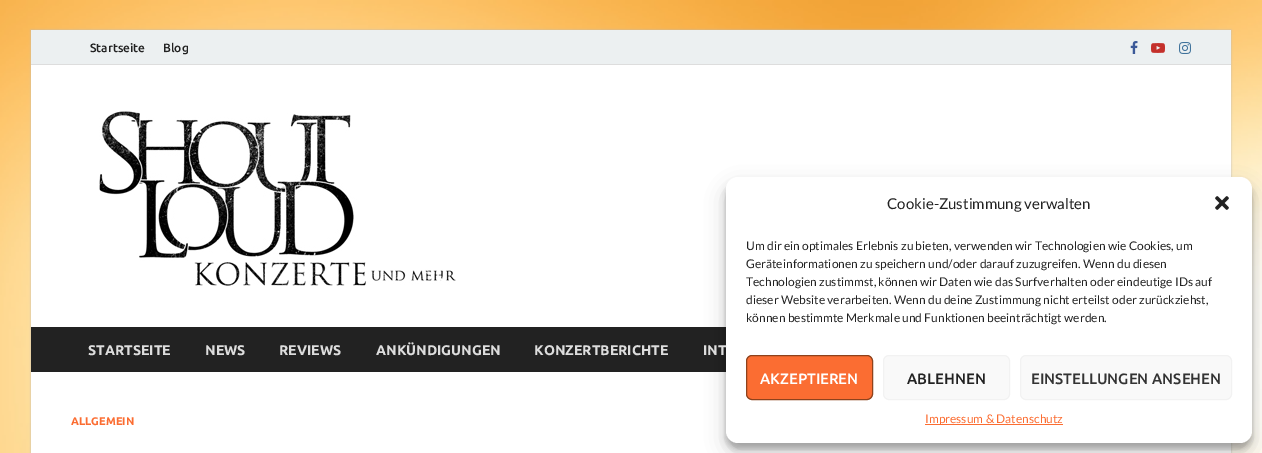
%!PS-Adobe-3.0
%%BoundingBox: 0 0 1262 453
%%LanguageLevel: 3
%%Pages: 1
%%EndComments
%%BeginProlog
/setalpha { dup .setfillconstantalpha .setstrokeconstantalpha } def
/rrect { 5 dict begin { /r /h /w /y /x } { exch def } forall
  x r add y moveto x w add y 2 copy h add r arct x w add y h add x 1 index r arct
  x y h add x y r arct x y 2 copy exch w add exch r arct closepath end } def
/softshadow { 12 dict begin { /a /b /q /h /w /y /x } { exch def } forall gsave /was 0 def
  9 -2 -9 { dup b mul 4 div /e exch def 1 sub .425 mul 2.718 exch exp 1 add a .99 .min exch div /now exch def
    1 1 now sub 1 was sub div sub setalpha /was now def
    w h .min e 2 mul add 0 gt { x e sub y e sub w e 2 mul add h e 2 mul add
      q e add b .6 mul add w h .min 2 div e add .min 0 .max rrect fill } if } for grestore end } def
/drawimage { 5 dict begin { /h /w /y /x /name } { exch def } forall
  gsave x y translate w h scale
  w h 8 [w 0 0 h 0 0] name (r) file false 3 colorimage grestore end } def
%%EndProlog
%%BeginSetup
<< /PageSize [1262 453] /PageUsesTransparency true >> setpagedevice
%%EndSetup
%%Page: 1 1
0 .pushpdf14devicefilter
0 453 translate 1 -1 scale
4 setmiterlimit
1 setgray
0 0 1262 453 rectfill
(images/1.raw) 0 0 1262 453 drawimage
0.733 setgray
31 30 1200 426 0 1 1 softshadow
1 setgray
31 65 1200 388 rectfill
0.925 0.941 0.945 setrgbcolor
31 30 1200 34 rectfill
0.867 setgray
31 64 1200 1 rectfill
(images/2.raw) 1130 41 8 13 drawimage
(images/3.raw) 1151 43 14 10 drawimage
(images/4.raw) 1179 42 12 12 drawimage
(images/5.raw) 99 111 357 175 drawimage
0.133 setgray
31 327 695 45 rectfill
0 setgray
726 183 526 266 12 3 0.23 softshadow
726 187 526 266 12 10 0.19 softshadow
1 setgray
726 177 526 266 12 rrect fill
(images/6.raw) 1215 196 14 14 drawimage
0.984 0.427 0.196 setrgbcolor
746.5 355.5 126 44 5.5 rrect gsave fill grestore
0.557 0.259 0.11 setrgbcolor
stroke
0.976 setgray
883.5 355.5 126 44 5.5 rrect gsave fill grestore
0.949 setgray
stroke
0.976 setgray
1020.5 355.5 211 44 5.5 rrect gsave fill grestore
0.949 setgray
stroke
0.984 0.427 0.196 setrgbcolor
925 424 138 1 rectfill
/Ubuntu-Medium [12 0 0 -12 0 0] selectfont
0.133 setgray
90 52 moveto (Startseite) show
163 52 moveto (Blog) show
/Ubuntu-Bold [14 0 0 -14 0 0] selectfont
0.867 setgray
88 355 moveto (STARTSEITE) show
205 355 moveto (NEWS) show
279 355 moveto (REVIEWS) show
376 355 moveto (ANKÜNDIGUNGEN) show
534 355 moveto (KONZERTBERICHTE) show
703 355 moveto (INT) show
/Ubuntu-Bold [11 0 0 -11 0 0] selectfont
0.984 0.427 0.196 setrgbcolor
71 425 moveto (ALLGEMEIN) show
/Lato-Regular [15 0 0 -15 0 0] selectfont
0.133 setgray
887 209 moveto (Cookie-Zustimmung verwalten) show
/Lato-Regular [12 0 0 -12 0 0] selectfont
746 250 moveto (Um dir ein optimales Erlebnis zu bieten, verwenden wir Technologien wie Cookies, um) show
746 268 moveto (Geräteinformationen zu speichern und/oder darauf zuzugreifen. Wenn du diesen) show
746 286 moveto (Technologien zustimmst, können wir Daten wie das Surfverhalten oder eindeutige IDs auf) show
746 304 moveto (dieser Website verarbeiten. Wenn du deine Zustimmung nicht erteilst oder zurückziehst,) show
746 322 moveto (können bestimmte Merkmale und Funktionen beeinträchtigt werden.) show
/Ubuntu-Medium [15 0 0 -15 0 0] selectfont
1 setgray
760 384 moveto (AKZEPTIEREN) show
0.133 setgray
907 384 moveto (ABLEHNEN) show
0.2 setgray
1031 384 moveto (EINSTELLUNGEN ANSEHEN) show
/Lato-Regular [12 0 0 -12 0 0] selectfont
0.984 0.427 0.196 setrgbcolor
925 423 moveto (Impressum & Datenschutz) show
.poppdf14devicefilter showpage
%%EOF
